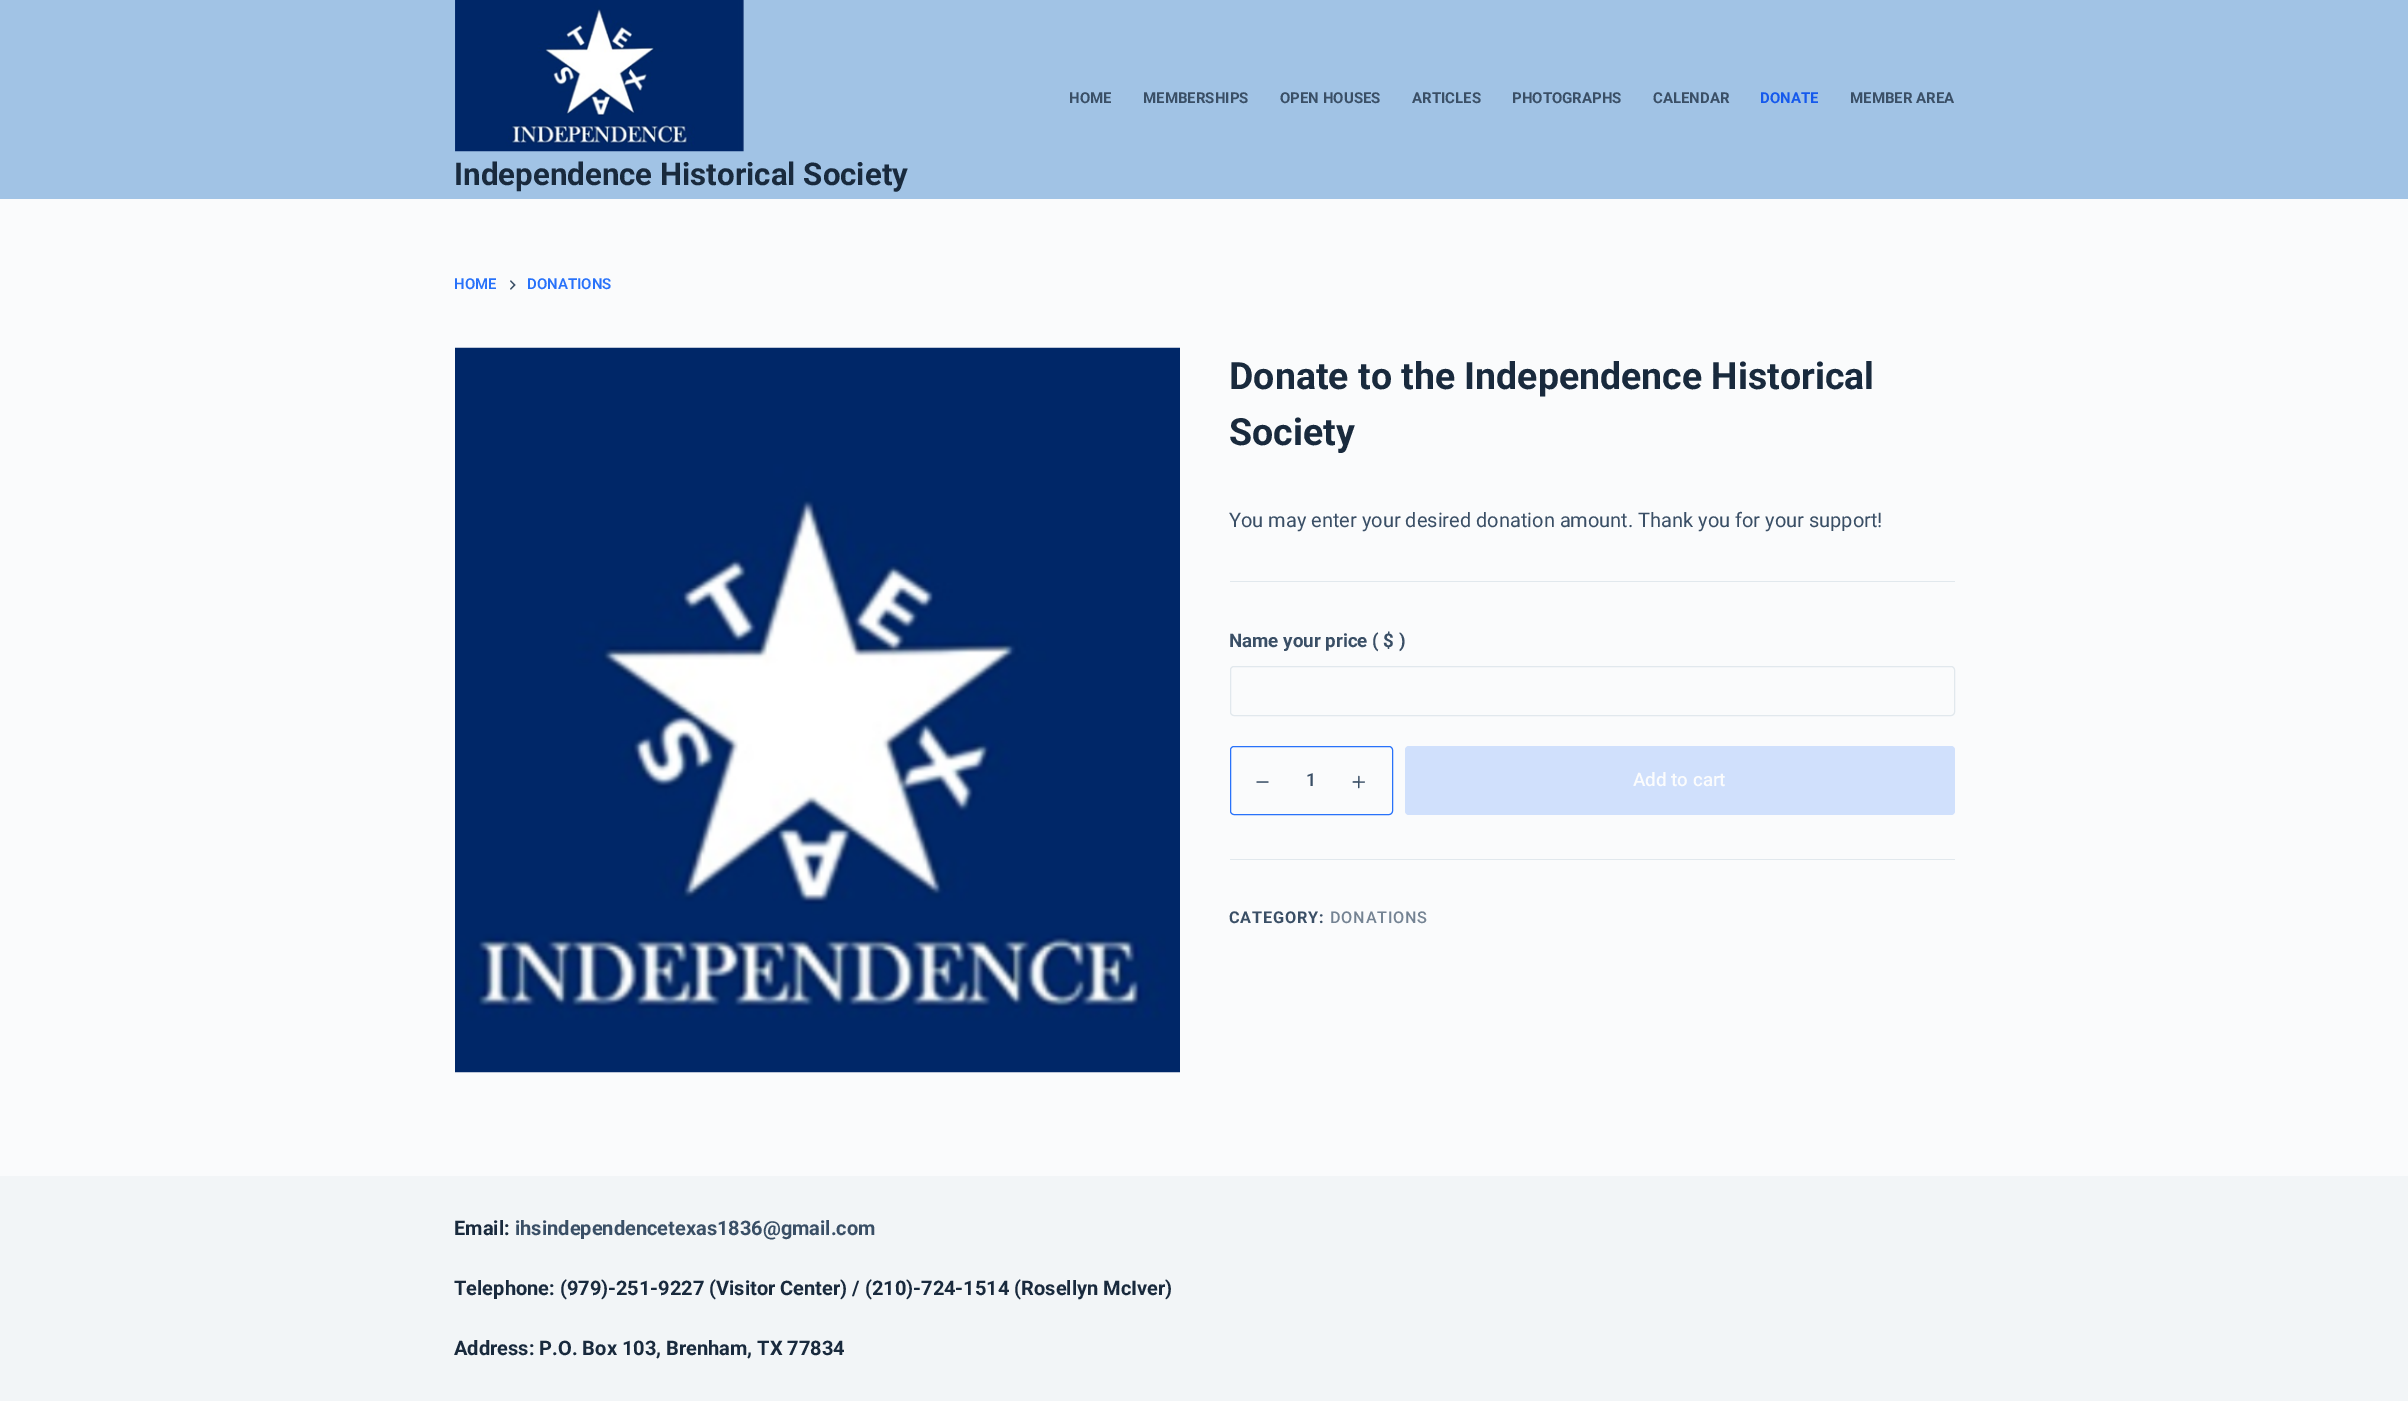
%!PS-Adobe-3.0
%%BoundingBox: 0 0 2408 1401
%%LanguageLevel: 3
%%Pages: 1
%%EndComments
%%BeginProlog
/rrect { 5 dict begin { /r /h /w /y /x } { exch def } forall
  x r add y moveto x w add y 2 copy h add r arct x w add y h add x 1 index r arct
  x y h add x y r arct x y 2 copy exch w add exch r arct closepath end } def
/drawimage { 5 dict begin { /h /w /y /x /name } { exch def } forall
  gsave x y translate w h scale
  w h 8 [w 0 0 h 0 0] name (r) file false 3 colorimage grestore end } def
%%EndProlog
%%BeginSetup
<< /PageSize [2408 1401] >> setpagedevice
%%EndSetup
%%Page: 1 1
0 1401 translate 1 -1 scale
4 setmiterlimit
0.98 0.984 0.988 setrgbcolor
0 0 2408 1401 rectfill
0.631 0.765 0.898 setrgbcolor
0 0 2408 199 rectfill
(images/1.raw) 455 0 289 152 drawimage
(images/2.raw) 510 280 6 10 drawimage
(images/3.raw) 455 347 725 726 drawimage
0.882 0.91 0.929 setrgbcolor
1230 581 725 1 rectfill
1230.5 666.5 724 49 3.5 rrect stroke
0.157 0.447 0.98 setrgbcolor
1230.5 746.5 162 68 3.5 rrect stroke
(images/4.raw) 1256 781 13 2 drawimage
(images/5.raw) 1352 775 13 14 drawimage
0.816 0.878 0.988 setrgbcolor
1405 746 550 69 4 rrect fill
0.882 0.91 0.929 setrgbcolor
1230 859 725 1 rectfill
0.949 0.961 0.969 setrgbcolor
0 1176 2408 225 rectfill
/Roboto-Bold [15 0 0 -15 0 0] selectfont
0.227 0.31 0.4 setrgbcolor
1069 103 moveto (HOME) show
1143 103 moveto (MEMBERSHIPS) show
1280 103 moveto (OPEN HOUSES) show
1412 103 moveto (ARTICLES) show
1512 103 moveto (PHOTOGRAPHS) show
1653 103 moveto (CALENDAR) show
0.082 0.349 0.929 setrgbcolor
1760 103 moveto (DONATE) show
0.227 0.31 0.4 setrgbcolor
1850 103 moveto (MEMBER AREA) show
/Roboto-Bold [31.25 0 0 -31.25 0 0] selectfont
0.098 0.165 0.239 setrgbcolor
454 185 moveto (Independence Historical Society) show
/Roboto-SemiBold [15 0 0 -15 0 0] selectfont
0.157 0.447 0.98 setrgbcolor
454 289 moveto (HOME) show
527 289 moveto (DONATIONS) show
/Roboto-Bold [37.5 0 0 -37.5 0 0] selectfont
0.098 0.165 0.239 setrgbcolor
1229 389 moveto (Donate to the Independence Historical) show
1229 445 moveto (Society) show
/Roboto-Regular [20 0 0 -20 0 0] selectfont
0.227 0.31 0.4 setrgbcolor
1229 527 moveto (You may enter your desired donation amount. Thank you for your support!) show
/Roboto-Bold [18.75 0 0 -18.75 0 0] selectfont
1229 647 moveto (Name your price \( $ \)) show
/Roboto-Medium [18 0 0 -18 0 0] selectfont
1306 786 moveto (1) show
/Roboto-Medium [18.75 0 0 -18.75 0 0] selectfont
0.984 0.988 0.992 setrgbcolor
1633 786 moveto (Add to cart) show
/Roboto-Bold [16.25 0 0 -16.25 0 0] selectfont
0.227 0.31 0.4 setrgbcolor
1229 923 moveto 0.75 0 (CATEGORY:) ashow
/Roboto-Medium [16.25 0 0 -16.25 0 0] selectfont
0.455 0.514 0.576 setrgbcolor
1330 923 moveto 0.75 0 (DONATIONS) ashow
/Roboto-Bold [20 0 0 -20 0 0] selectfont
0.098 0.165 0.239 setrgbcolor
454 1235 moveto (Email:) show
0.227 0.31 0.4 setrgbcolor
515 1235 moveto (ihsindependencetexas1836@gmail.com) show
0.098 0.165 0.239 setrgbcolor
454 1295 moveto (Telephone: \(979\)-251-9227 \(Visitor Center\) / \(210\)-724-1514 \(Rosellyn McIver\)) show
454 1355 moveto (Address: P.O. Box 103, Brenham, TX 77834) show
showpage
%%EOF
